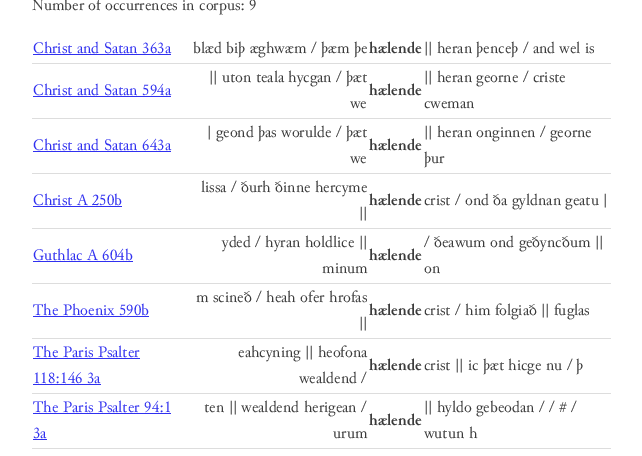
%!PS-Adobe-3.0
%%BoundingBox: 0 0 642 456
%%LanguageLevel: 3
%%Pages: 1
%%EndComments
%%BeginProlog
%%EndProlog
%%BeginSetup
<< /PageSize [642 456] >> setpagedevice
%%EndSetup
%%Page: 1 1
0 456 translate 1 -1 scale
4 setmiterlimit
1 setgray
0 0 642 456 rectfill
0.188 0.188 0.941 setrgbcolor
33 54 138 1 rectfill
0.867 setgray
32 63 579 1 rectfill
0.188 0.188 0.941 setrgbcolor
33 96 138 1 rectfill
0.867 setgray
32 118 579 1 rectfill
0.188 0.188 0.941 setrgbcolor
33 151 138 1 rectfill
0.867 setgray
32 173 579 1 rectfill
0.188 0.188 0.941 setrgbcolor
33 206 89 1 rectfill
0.867 setgray
32 228 579 1 rectfill
0.188 0.188 0.941 setrgbcolor
33 261 100 1 rectfill
0.867 setgray
32 283 579 1 rectfill
0.188 0.188 0.941 setrgbcolor
33 316 116 1 rectfill
0.867 setgray
32 338 579 1 rectfill
0.188 0.188 0.941 setrgbcolor
33 358 107 1 rectfill
33 384 68 1 rectfill
0.867 setgray
32 393 579 1 rectfill
0.188 0.188 0.941 setrgbcolor
33 413 138 1 rectfill
33 439 14 1 rectfill
0.867 setgray
32 448 579 1 rectfill
/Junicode-Regular [16 0 0 -16 0 0] selectfont
0.231 setgray
32 10 moveto (Number of occurrences in corpus: 9) show
0.188 0.188 0.941 setrgbcolor
33 53 moveto (Christ and Satan 363a) show
0.231 setgray
193 53 moveto (blæd biþ æghwæm / þæm þe) show
/Junicode-Bold [16 0 0 -16 0 0] selectfont
369 53 moveto (hælende) show
/Junicode-Regular [16 0 0 -16 0 0] selectfont
424 53 moveto (|| heran þenceþ / and wel is) show
0.188 0.188 0.941 setrgbcolor
33 95 moveto (Christ and Satan 594a) show
0.231 setgray
209 82 moveto (|| uton teala hycgan / þæt) show
350 108 moveto (we) show
/Junicode-Bold [16 0 0 -16 0 0] selectfont
369 95 moveto (hælende) show
/Junicode-Regular [16 0 0 -16 0 0] selectfont
424 82 moveto (|| heran georne / criste) show
424 108 moveto (cweman) show
0.188 0.188 0.941 setrgbcolor
33 150 moveto (Christ and Satan 643a) show
0.231 setgray
207 137 moveto (| geond þas worulde / þæt) show
350 163 moveto (we) show
/Junicode-Bold [16 0 0 -16 0 0] selectfont
369 150 moveto (hælende) show
/Junicode-Regular [16 0 0 -16 0 0] selectfont
424 137 moveto (|| heran onginnen / georne) show
424 163 moveto (þur) show
0.188 0.188 0.941 setrgbcolor
33 205 moveto (Christ A 250b) show
0.231 setgray
201 192 moveto (lissa / ðurh ðinne hercyme) show
359 218 moveto (||) show
/Junicode-Bold [16 0 0 -16 0 0] selectfont
369 205 moveto (hælende) show
/Junicode-Regular [16 0 0 -16 0 0] selectfont
424 205 moveto (crist / ond ða gyldnan geatu |) show
0.188 0.188 0.941 setrgbcolor
33 260 moveto (Guthlac A 604b) show
0.231 setgray
222 247 moveto (yded / hyran holdlice ||) show
322 273 moveto (minum) show
/Junicode-Bold [16 0 0 -16 0 0] selectfont
369 260 moveto (hælende) show
/Junicode-Regular [16 0 0 -16 0 0] selectfont
424 247 moveto (/ ðeawum ond geðyncðum ||) show
424 273 moveto (on) show
0.188 0.188 0.941 setrgbcolor
33 315 moveto (The Phoenix 590b) show
0.231 setgray
196 302 moveto (m scineð / heah ofer hrofas) show
359 328 moveto (||) show
/Junicode-Bold [16 0 0 -16 0 0] selectfont
369 315 moveto (hælende) show
/Junicode-Regular [16 0 0 -16 0 0] selectfont
424 315 moveto (crist / him folgiað || fuglas) show
0.188 0.188 0.941 setrgbcolor
33 357 moveto (The Paris Psalter) show
33 383 moveto (118:146 3a) show
0.231 setgray
238 357 moveto (eahcyning || heofona) show
299 383 moveto (wealdend /) show
/Junicode-Bold [16 0 0 -16 0 0] selectfont
369 370 moveto (hælende) show
/Junicode-Regular [16 0 0 -16 0 0] selectfont
424 370 moveto (crist || ic þæt hicge nu / þ) show
0.188 0.188 0.941 setrgbcolor
33 412 moveto (The Paris Psalter 94:1) show
33 438 moveto (3a) show
0.231 setgray
204 412 moveto (ten || wealdend herigean /) show
333 438 moveto (urum) show
/Junicode-Bold [16 0 0 -16 0 0] selectfont
369 425 moveto (hælende) show
/Junicode-Regular [16 0 0 -16 0 0] selectfont
424 412 moveto (|| hyldo gebeodan / / # /) show
424 438 moveto (wutun h) show
showpage
%%EOF
